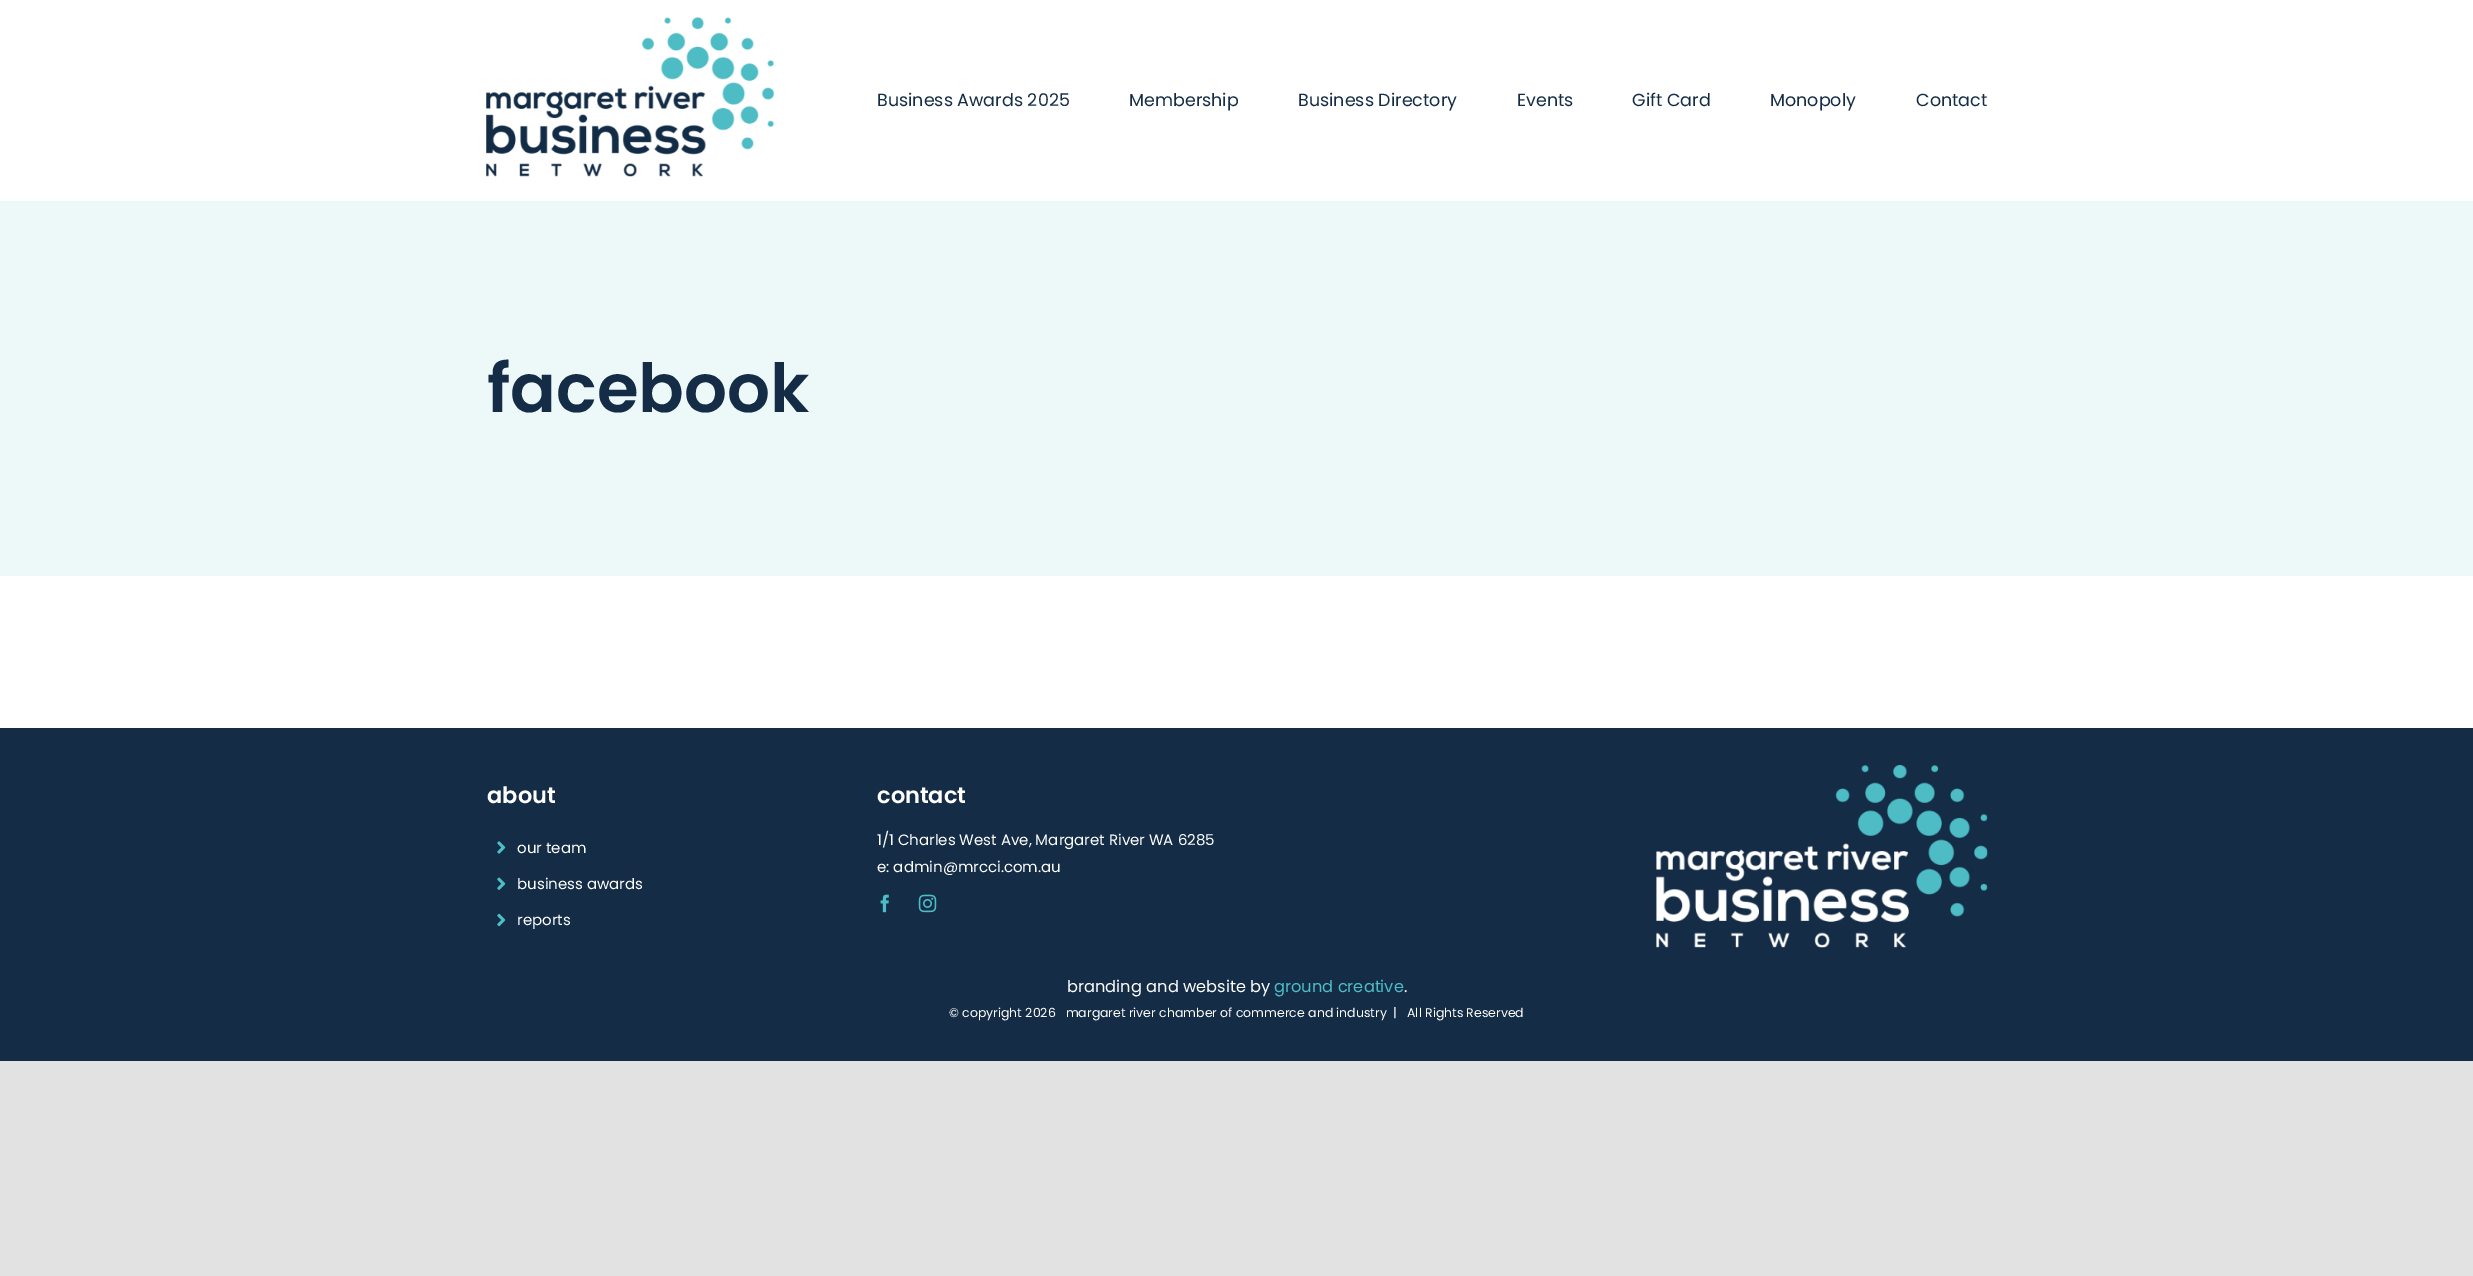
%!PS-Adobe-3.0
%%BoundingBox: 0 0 2473 1276
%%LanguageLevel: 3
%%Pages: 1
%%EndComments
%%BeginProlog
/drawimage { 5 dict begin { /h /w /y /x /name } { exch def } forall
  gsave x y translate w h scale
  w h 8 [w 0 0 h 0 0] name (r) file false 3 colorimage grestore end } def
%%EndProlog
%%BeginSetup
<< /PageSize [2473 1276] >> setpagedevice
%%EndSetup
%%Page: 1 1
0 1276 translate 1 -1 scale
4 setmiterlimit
0.886 setgray
0 0 2473 1276 rectfill
1 setgray
0 0 2473 728 rectfill
(images/1.raw) 486 17 288 160 drawimage
0.929 0.973 0.976 setrgbcolor
0 201 2473 375 rectfill
0.078 0.173 0.275 setrgbcolor
0 728 2473 333 rectfill
(images/2.raw) 497 841 9 13 drawimage
(images/3.raw) 497 877 9 13 drawimage
(images/4.raw) 497 913 9 14 drawimage
(images/5.raw) 880 894 9 19 drawimage
(images/6.raw) 918 894 19 19 drawimage
(images/7.raw) 1656 765 332 183 drawimage
/Poppins-Regular [17.5 0 0 -17.5 0 0] selectfont
877 106 moveto (Business Awards 2025) show
1129 106 moveto (Membership) show
1298 106 moveto (Business Directory) show
1517 106 moveto (Events) show
1632 106 moveto (Gift Card) show
1770 106 moveto (Monopoly) show
1916 106 moveto (Contact) show
/Poppins-SemiBold [67.5 0 0 -67.5 0 0] selectfont
487 412 moveto (facebook) show
/Poppins-SemiBold [22.5 0 0 -22.5 0 0] selectfont
1 setgray
487 803 moveto (about) show
/Poppins-Regular [15 0 0 -15 0 0] selectfont
517 853 moveto (our team) show
517 889 moveto (business awards) show
517 925 moveto (reports) show
/Poppins-SemiBold [22.5 0 0 -22.5 0 0] selectfont
877 803 moveto (contact) show
/Poppins-Regular [15 0 0 -15 0 0] selectfont
877 845 moveto (1/1 Charles West Ave, Margaret River WA 6285) show
877 872 moveto (e: admin@mrcci.com.au) show
/Poppins-Regular [16.25 0 0 -16.25 0 0] selectfont
1067 992 moveto (branding and website by) show
0.302 0.741 0.776 setrgbcolor
1274 992 moveto (ground creative) show
1 setgray
1404 992 moveto (.) show
/Poppins-Regular [12.5 0 0 -12.5 0 0] selectfont
949 1017 moveto (© copyright 2026   margaret river chamber of commerce and industry  |   All Rights Reserved) show
showpage
%%EOF
